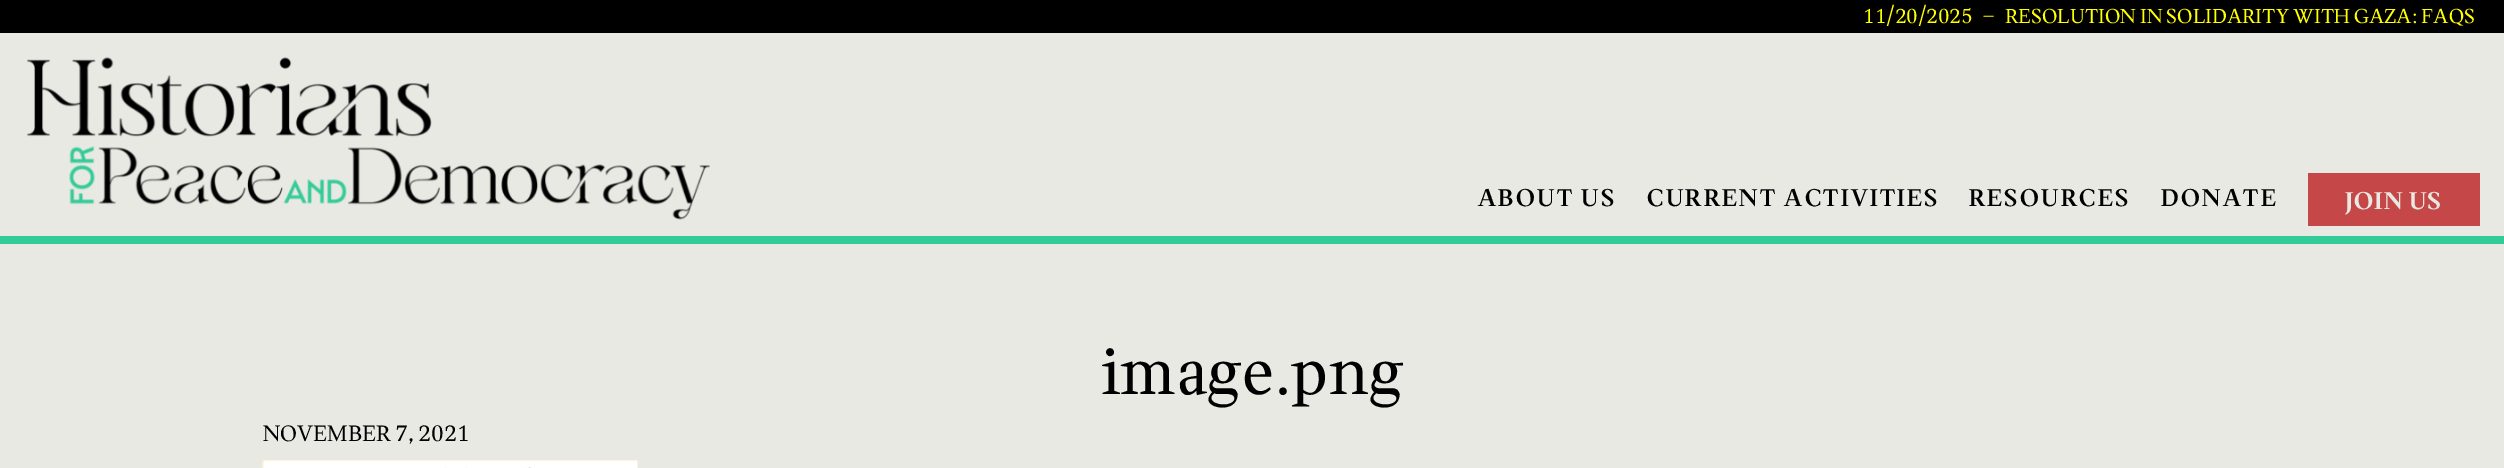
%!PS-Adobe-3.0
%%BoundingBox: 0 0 2504 468
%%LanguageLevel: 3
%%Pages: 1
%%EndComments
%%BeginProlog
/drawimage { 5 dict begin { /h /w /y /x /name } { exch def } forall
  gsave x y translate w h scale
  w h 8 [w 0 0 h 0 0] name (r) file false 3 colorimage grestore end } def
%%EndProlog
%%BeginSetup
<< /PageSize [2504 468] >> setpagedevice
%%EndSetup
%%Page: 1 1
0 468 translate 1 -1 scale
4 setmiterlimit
0.914 0.914 0.894 setrgbcolor
0 0 2504 468 rectfill
0 setgray
0 0 2504 33 rectfill
0.2 0.8 0.6 setrgbcolor
0 236 2504 8 rectfill
(images/1.raw) 26 57 684 163 drawimage
0.776 0.278 0.278 setrgbcolor
2308 173 172 53 rectfill
(images/2.raw) 262 460 376 8 drawimage
/Wittgenstein-Regular [20 0 0 -20 0 0] selectfont
1 1 0 setrgbcolor
1863 23 moveto (11/20/2025) show
/Wittgenstein-Regular [22 0 0 -22 0 0] selectfont
1982 24 moveto (–) show
/Wittgenstein-Regular [20 0 0 -20 0 0] selectfont
2005 23 moveto (RESOLUTION IN SOLIDARITY WITH GAZA: FAQS) show
/Wittgenstein-SemiBold [24 0 0 -24 0 0] selectfont
0 setgray
1478 206 moveto 2.4 0 (ABOUT US) ashow
1647 206 moveto 2.4 0 (CURRENT ACTIVITIES) ashow
1969 206 moveto 2.4 0 (RESOURCES) ashow
2161 206 moveto 2.4 0 (DONATE) ashow
/Wittgenstein-Bold [24 0 0 -24 0 0] selectfont
0.914 0.914 0.894 setrgbcolor
2345 209 moveto 1 0 (JOIN US) ashow
/Wittgenstein-Regular [63 0 0 -63 0 0] selectfont
0 setgray
1101 394 moveto (image.png) show
/Wittgenstein-Regular [22 0 0 -22 0 0] selectfont
263 441 moveto (NOVEMBER 7, 2021) show
showpage
%%EOF
